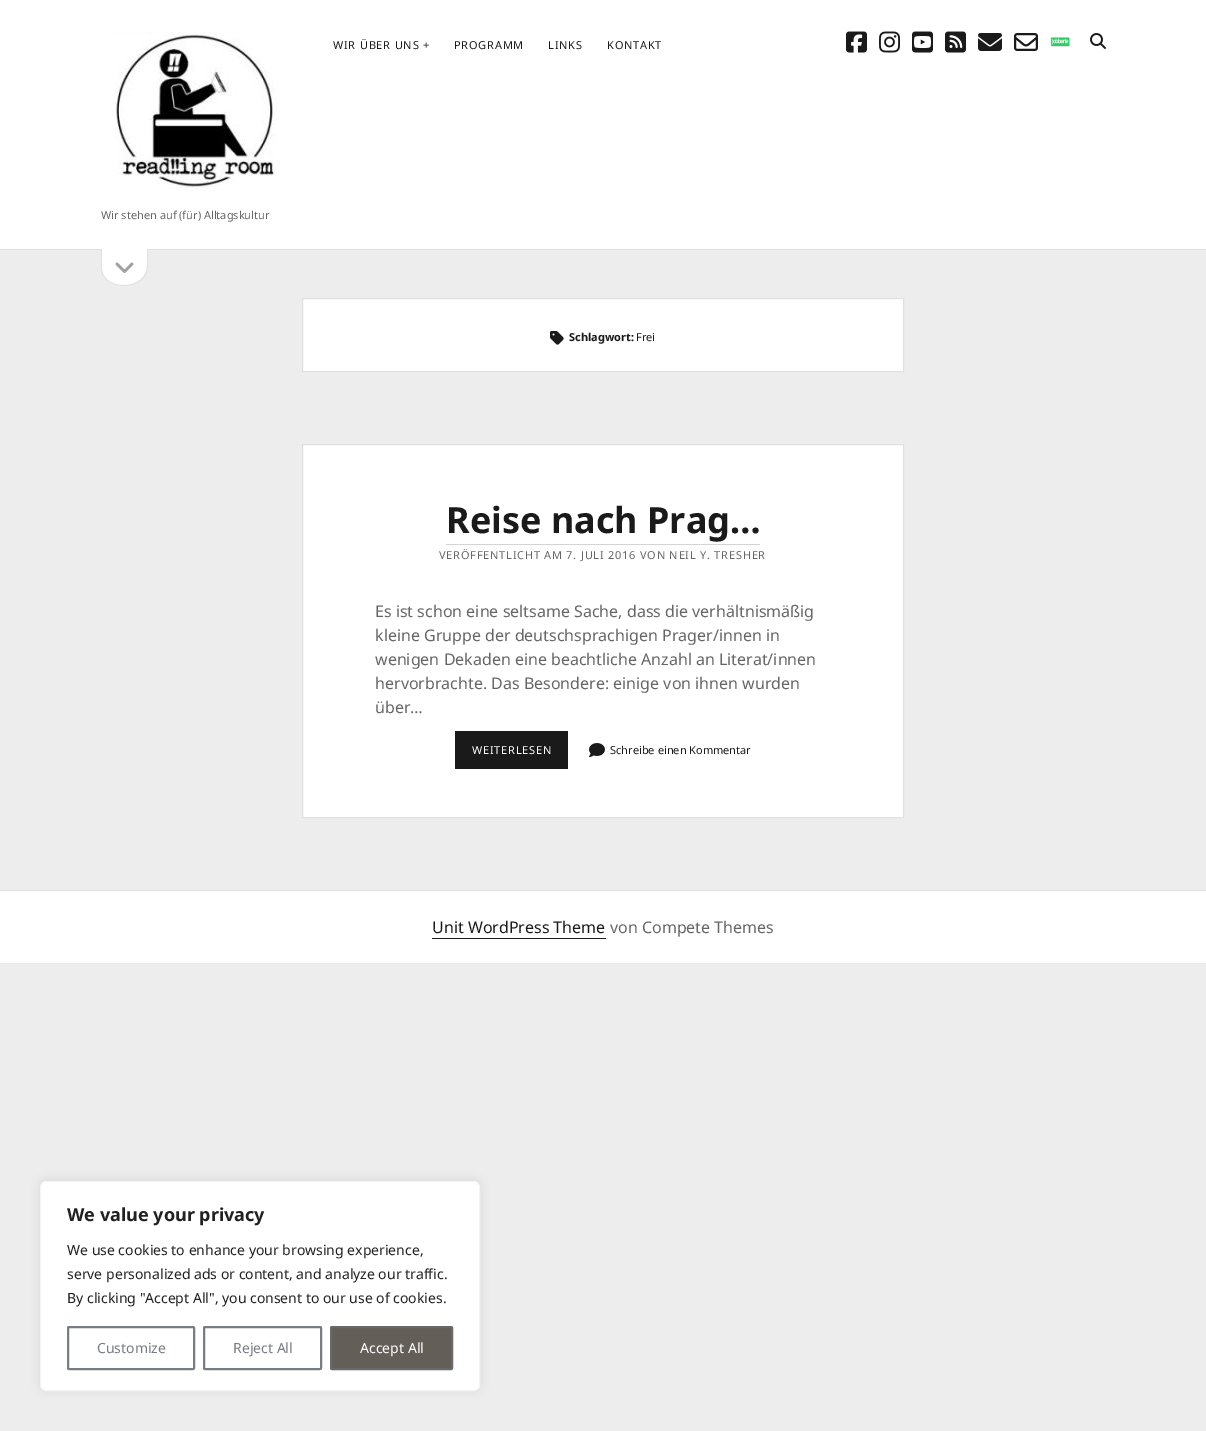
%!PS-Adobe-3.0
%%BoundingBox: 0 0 1206 1431
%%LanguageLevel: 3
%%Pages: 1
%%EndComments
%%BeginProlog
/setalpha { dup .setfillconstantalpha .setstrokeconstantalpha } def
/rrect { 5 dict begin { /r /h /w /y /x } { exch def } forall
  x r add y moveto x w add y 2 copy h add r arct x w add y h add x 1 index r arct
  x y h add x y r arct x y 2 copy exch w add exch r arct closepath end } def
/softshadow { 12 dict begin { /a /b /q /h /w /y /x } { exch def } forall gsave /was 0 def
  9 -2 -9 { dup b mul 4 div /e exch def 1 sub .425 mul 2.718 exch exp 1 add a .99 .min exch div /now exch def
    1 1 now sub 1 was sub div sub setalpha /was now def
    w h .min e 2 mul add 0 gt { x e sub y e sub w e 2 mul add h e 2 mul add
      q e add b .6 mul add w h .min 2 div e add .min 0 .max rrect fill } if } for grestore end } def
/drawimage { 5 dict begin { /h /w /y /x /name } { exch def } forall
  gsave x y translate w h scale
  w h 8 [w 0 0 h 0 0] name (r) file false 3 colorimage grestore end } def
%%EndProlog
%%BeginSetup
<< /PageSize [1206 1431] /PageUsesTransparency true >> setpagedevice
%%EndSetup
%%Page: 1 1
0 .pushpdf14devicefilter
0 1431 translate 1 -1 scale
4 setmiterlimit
0.929 setgray
0 0 1206 1431 rectfill
1 setgray
0 0 1206 249 rectfill
0.878 setgray
0 249 1206 1 rectfill
(images/1.raw) 846 31 21 22 drawimage
(images/2.raw) 879 31 21 22 drawimage
(images/3.raw) 912 31 21 22 drawimage
(images/4.raw) 945 31 21 22 drawimage
(images/5.raw) 978 33 24 18 drawimage
(images/6.raw) 1014 33 24 18 drawimage
(images/7.raw) 1050 37 20 10 drawimage
(images/8.raw) 1090 33 16 16 drawimage
(images/9.raw) 110 32 167 159 drawimage
1 setgray
newpath 101 249 moveto 148 249 lineto 148 256 149 269 146 275 curveto 137 292 101 289 101 268 curveto closepath fill
0.878 setgray
newpath 101 249 moveto 148 249 lineto 148 256 149 269 146 275 curveto 137 292 101 289 101 268 curveto closepath 102 249 moveto 147 249 lineto 147 256 148 269 145 274 curveto 136 291 102 288 102 268 curveto closepath eofill
(images/10.raw) 115 262 19 11 drawimage
1 setgray
newpath 302.5 298.5 moveto 903.5 298.5 lineto 903.5 371.5 lineto 302.5 371.5 lineto closepath gsave fill grestore
0.878 setgray
stroke
(images/11.raw) 550 331 14 14 drawimage
1 setgray
newpath 302.5 444.5 moveto 903.5 444.5 lineto 903.5 817.5 lineto 302.5 817.5 lineto closepath gsave fill grestore
0.878 setgray
stroke
0.831 setgray
446 544 314 1 rectfill
0.102 setgray
455 731 113 38 rectfill
(images/12.raw) 589 743 16 14 drawimage
1 setgray
0 891 1206 72 rectfill
0.878 setgray
0 890 1206 1 rectfill
0.102 setgray
432 938 174 1 rectfill
0.675 0.671 0.671 setrgbcolor
40 1180 440 210 6 5 0.3 softshadow
1 setgray
40.5 1181.5 439 209 5.5 rrect gsave fill grestore
0.957 setgray
stroke
0.471 0.49 0.518 setrgbcolor
2 setlinewidth
68 1327 126 42 1 rrect stroke
204 1327 117 42 1 rrect stroke
0.388 0.369 0.345 setrgbcolor
331 1327 121 42 1 rrect gsave fill grestore
0.404 0.412 0.424 setrgbcolor
stroke
/NotoSans-Regular [11 0 0 -11 0 0] selectfont
0.102 setgray
333 49 moveto 0.77 0 (WIR ÜBER UNS +) ashow
454 49 moveto 0.77 0 (PROGRAMM) ashow
548 49 moveto 0.77 0 (LINKS) ashow
607 49 moveto 0.77 0 (KONTAKT) ashow
0.4 setgray
101 219 moveto (Wir stehen auf \(für\) Alltagskultur) show
/NotoSans-Bold [11 0 0 -11 0 0] selectfont
0.102 setgray
569 341 moveto (Schlagwort:) show
/NotoSans-Regular [11 0 0 -11 0 0] selectfont
636 341 moveto (Frei) show
/NotoSans-Bold [36 0 0 -36 0 0] selectfont
446 533 moveto (Reise nach Prag…) show
/NotoSans-Regular [11 0 0 -11 0 0] selectfont
0.4 setgray
439 559 moveto 0.77 0 (VERÖFFENTLICHT AM 7. JULI 2016 VON NEIL Y. TRESHER) ashow
/NotoSans-Regular [16 0 0 -16 0 0] selectfont
375 617 moveto (Es ist schon eine seltsame Sache, dass die verhältnismäßig) show
375 641 moveto (kleine Gruppe der deutschsprachigen Prager/innen in) show
375 665 moveto (wenigen Dekaden eine beachtliche Anzahl an Literat/innen) show
375 689 moveto (hervorbrachte. Das Besondere: einige von ihnen wurden) show
375 713 moveto (über…) show
/NotoSans-Regular [11 0 0 -11 0 0] selectfont
1 setgray
472 754 moveto 0.77 0 (WEITERLESEN) ashow
0.102 setgray
610 754 moveto (Schreibe einen Kommentar) show
/NotoSans-Regular [16 0 0 -16 0 0] selectfont
432 933 moveto (Unit WordPress Theme) show
0.4 setgray
610 933 moveto (von Compete Themes) show
/NotoSans-Bold [18 0 0 -18 0 0] selectfont
0.129 setgray
67 1221 moveto (We value your privacy) show
/NotoSans-Regular [14 0 0 -14 0 0] selectfont
67 1255 moveto (We use cookies to enhance your browsing experience,) show
67 1279 moveto (serve personalized ads or content, and analyze our traffic.) show
67 1303 moveto (By clicking "Accept All", you consent to our use of cookies.) show
0.471 0.49 0.518 setrgbcolor
97 1353 moveto (Customize) show
233 1353 moveto (Reject All) show
1 setgray
360 1353 moveto (Accept All) show
.poppdf14devicefilter showpage
%%EOF
